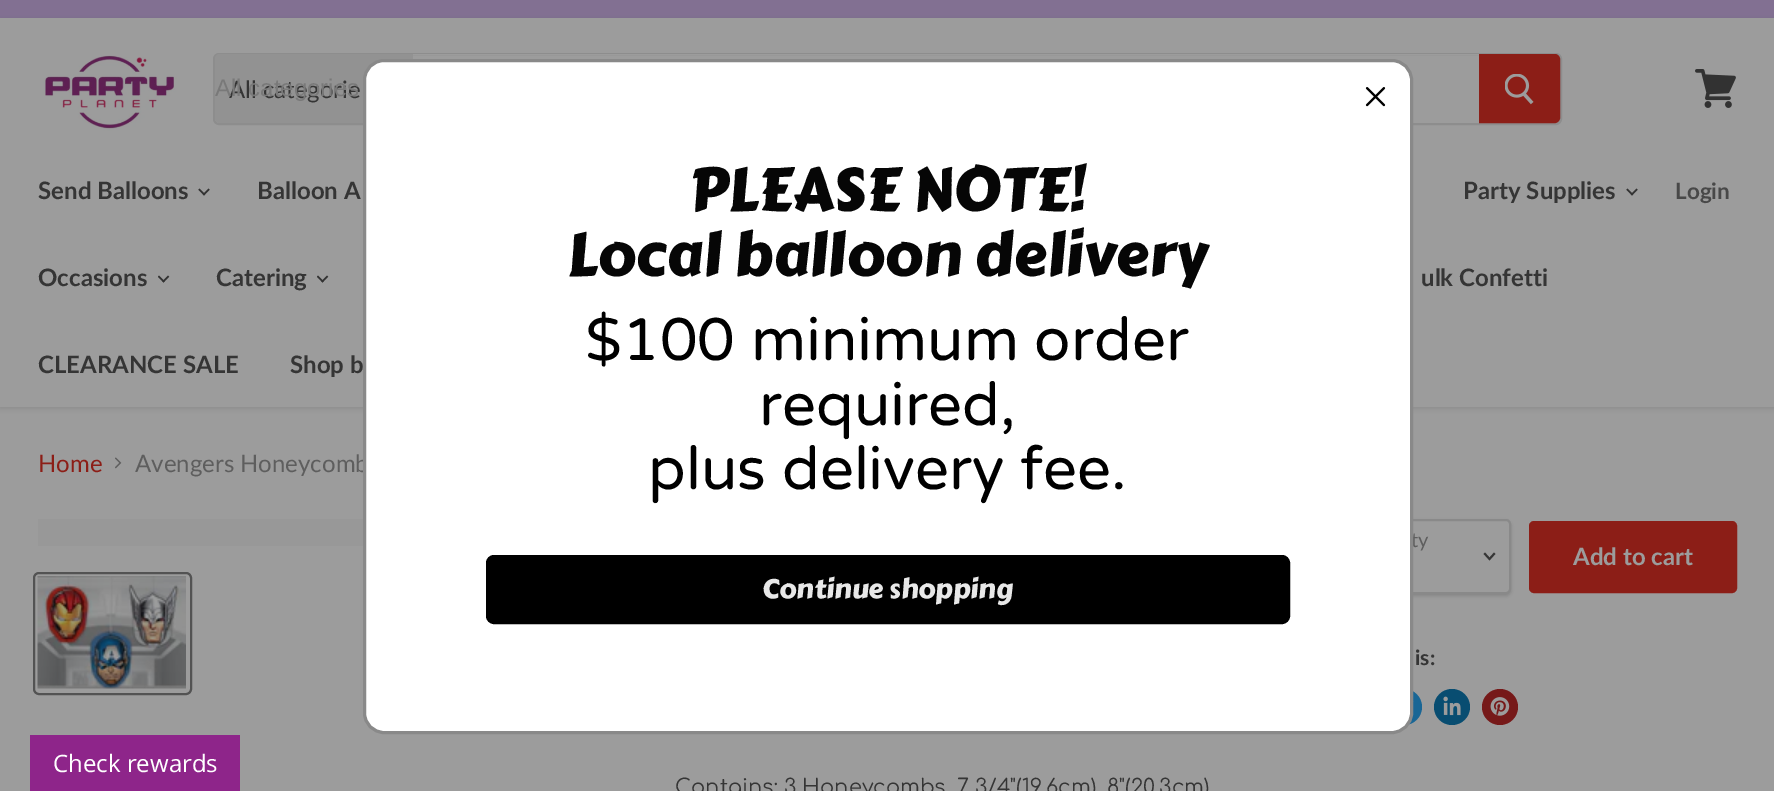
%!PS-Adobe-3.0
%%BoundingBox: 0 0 1774 791
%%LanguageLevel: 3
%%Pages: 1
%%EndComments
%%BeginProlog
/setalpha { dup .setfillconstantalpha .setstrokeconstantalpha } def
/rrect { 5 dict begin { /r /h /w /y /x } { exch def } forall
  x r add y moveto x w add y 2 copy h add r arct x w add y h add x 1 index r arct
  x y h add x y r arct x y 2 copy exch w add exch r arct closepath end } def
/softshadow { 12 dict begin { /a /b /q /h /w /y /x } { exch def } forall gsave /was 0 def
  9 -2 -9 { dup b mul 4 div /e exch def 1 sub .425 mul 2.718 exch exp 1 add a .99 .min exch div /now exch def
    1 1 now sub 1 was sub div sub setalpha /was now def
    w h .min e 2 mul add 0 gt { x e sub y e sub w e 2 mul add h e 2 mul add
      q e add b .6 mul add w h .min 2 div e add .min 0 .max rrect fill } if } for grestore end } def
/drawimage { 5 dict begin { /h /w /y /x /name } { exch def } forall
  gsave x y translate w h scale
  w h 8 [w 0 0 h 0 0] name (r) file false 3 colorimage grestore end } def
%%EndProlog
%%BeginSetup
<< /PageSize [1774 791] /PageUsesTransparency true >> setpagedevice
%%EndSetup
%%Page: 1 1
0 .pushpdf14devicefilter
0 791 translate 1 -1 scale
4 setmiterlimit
0.612 setgray
0 0 1774 791 rectfill
0.51 0.439 0.573 setrgbcolor
0 0 1774 18 rectfill
0.325 setgray
0 20 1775 388 0 3 0.25 softshadow
0.612 setgray
0 18 1774 389 rectfill
(images/1.raw) 43 55 134 76 drawimage
0.2 setalpha
0.325 setgray
2 setlinewidth
214 54 1347 70 5 rrect stroke
1 setalpha
0.573 setgray
newpath 220 54 moveto 413 54 lineto 413 123 lineto 220 123 lineto 217 123 215 121 215 118 curveto 215 59 lineto 215 56 217 54 220 54 curveto closepath fill
0.612 setgray
413 54 1066 1 rectfill
0.549 0.118 0.09 setrgbcolor
newpath 1480 55 moveto 1555 55 lineto 1557 55 1559 57 1559 59 curveto 1559 118 lineto 1559 120 1557 122 1555 122 curveto 1480 122 lineto closepath gsave fill grestore
stroke
(images/2.raw) 1505 74 29 31 drawimage
(images/3.raw) 1695 69 41 39 drawimage
(images/4.raw) 198 188 12 8 drawimage
(images/4.raw) 1626 188 12 8 drawimage
(images/5.raw) 158 275 12 8 drawimage
(images/5.raw) 317 275 12 8 drawimage
(images/7.raw) 115 457 7 12 drawimage
0.596 setgray
38 519 325 27 rectfill
0.325 setgray
34 573 157 121 5 rrect stroke
(images/8.raw) 37 576 149 113 drawimage
0.031 setgray
1338 521 173 75 5 1.5 0.15 softshadow
0.612 setgray
1339 520 171 73 4 rrect gsave fill grestore
0.537 setgray
stroke
0.208 setgray
1.9 setlinewidth
2 setlinecap
newpath 1489.5 559 moveto 1494 554 lineto 1489.5 559 moveto 1485 554 lineto stroke
0.549 0.118 0.09 setrgbcolor
1530 522 206 70 4 rrect gsave fill grestore
2 setlinewidth
0 setlinecap
stroke
0.098 0.4 0.584 setrgbcolor
newpath 1404 707 18 0 360 arc closepath fill
(images/9.raw) 1413 701 1 1 drawimage
0.031 0.302 0.443 setrgbcolor
newpath 1452 707 18 0 360 arc closepath fill
(images/10.raw) 1443 696 18 20 drawimage
0.463 0.098 0.098 setrgbcolor
newpath 1500 707 18 0 360 arc closepath fill
(images/11.raw) 1490 697 20 19 drawimage
0.557 0.145 0.541 setrgbcolor
30 735 210 56 rectfill
/Lato-Regular [24 0 0 -24 0 0] selectfont
0.208 setgray
229 98 moveto (All categorie) show
/LiberationSans-Regular [24 0 0 -24 0 0] selectfont
0.475 setgray
215 96 moveto (All categories) show
/Lato-Bold [24 0 0 -24 0 0] selectfont
0.208 setgray
38 199 moveto (Send Balloons) show
257 199 moveto (Balloon A) show
1463 199 moveto (Party Supplies) show
38 286 moveto (Occasions) show
216 286 moveto (Catering) show
1421 286 moveto (ulk Confetti) show
38 373 moveto (CLEARANCE SALE) show
290 373 moveto (Shop b) show
/Lato-Bold [22.5 0 0 -22.5 0 0] selectfont
0.282 setgray
1675 199 moveto (Login) show
/Lato-Regular [24 0 0 -24 0 0] selectfont
0.549 0.118 0.09 setrgbcolor
38 472 moveto (Home) show
0.369 setgray
135 472 moveto (Avengers Honeycomb) show
/Lato-Regular [20 0 0 -20 0 0] selectfont
1411 547 moveto (ty) show
1 setgray
364.5 60.5 1047 672 19.5 rrect gsave fill grestore
0.537 setgray
3 setlinewidth
stroke
(images/6.raw) 1365 87 21 20 drawimage
0 setgray
487.5 556.5 801 66 6.5 rrect gsave fill grestore
stroke
/CarterOne-Regular [27 0 0 -27 0 0] selectfont
0.91 setgray
762 598 moveto (Continue shopping) show
/VarelaRound-Regular [60 0 0 -60 0 0] selectfont
0 setgray
648 489 moveto (plus delivery fee.) show
759 425 moveto (required,) show
585 360 moveto ($100 minimum order) show
/CarterOne-Regular [60 0 0 -60 0 0] selectfont
0.024 setgray
567 275 moveto (Local balloon delivery) show
689 210 moveto (PLEASE NOTE!) show
/Lato-Bold [24 0 0 -24 0 0] selectfont
0.612 setgray
1573 565 moveto (Add to cart) show
/Lato-Bold [21 0 0 -21 0 0] selectfont
0.208 setgray
1415 665 moveto (is:) show
/Comfortaa-Regular [21 0 0 -21 0 0] selectfont
675 794 moveto (Contains: 3 Honeycombs, 7 3/4"\(19.6cm\), 8"\(20.3cm\)) show
/OpenSans-Regular [24 0 0 -24 0 0] selectfont
1 setgray
53 772 moveto (Check rewards) show
.poppdf14devicefilter showpage
%%EOF
